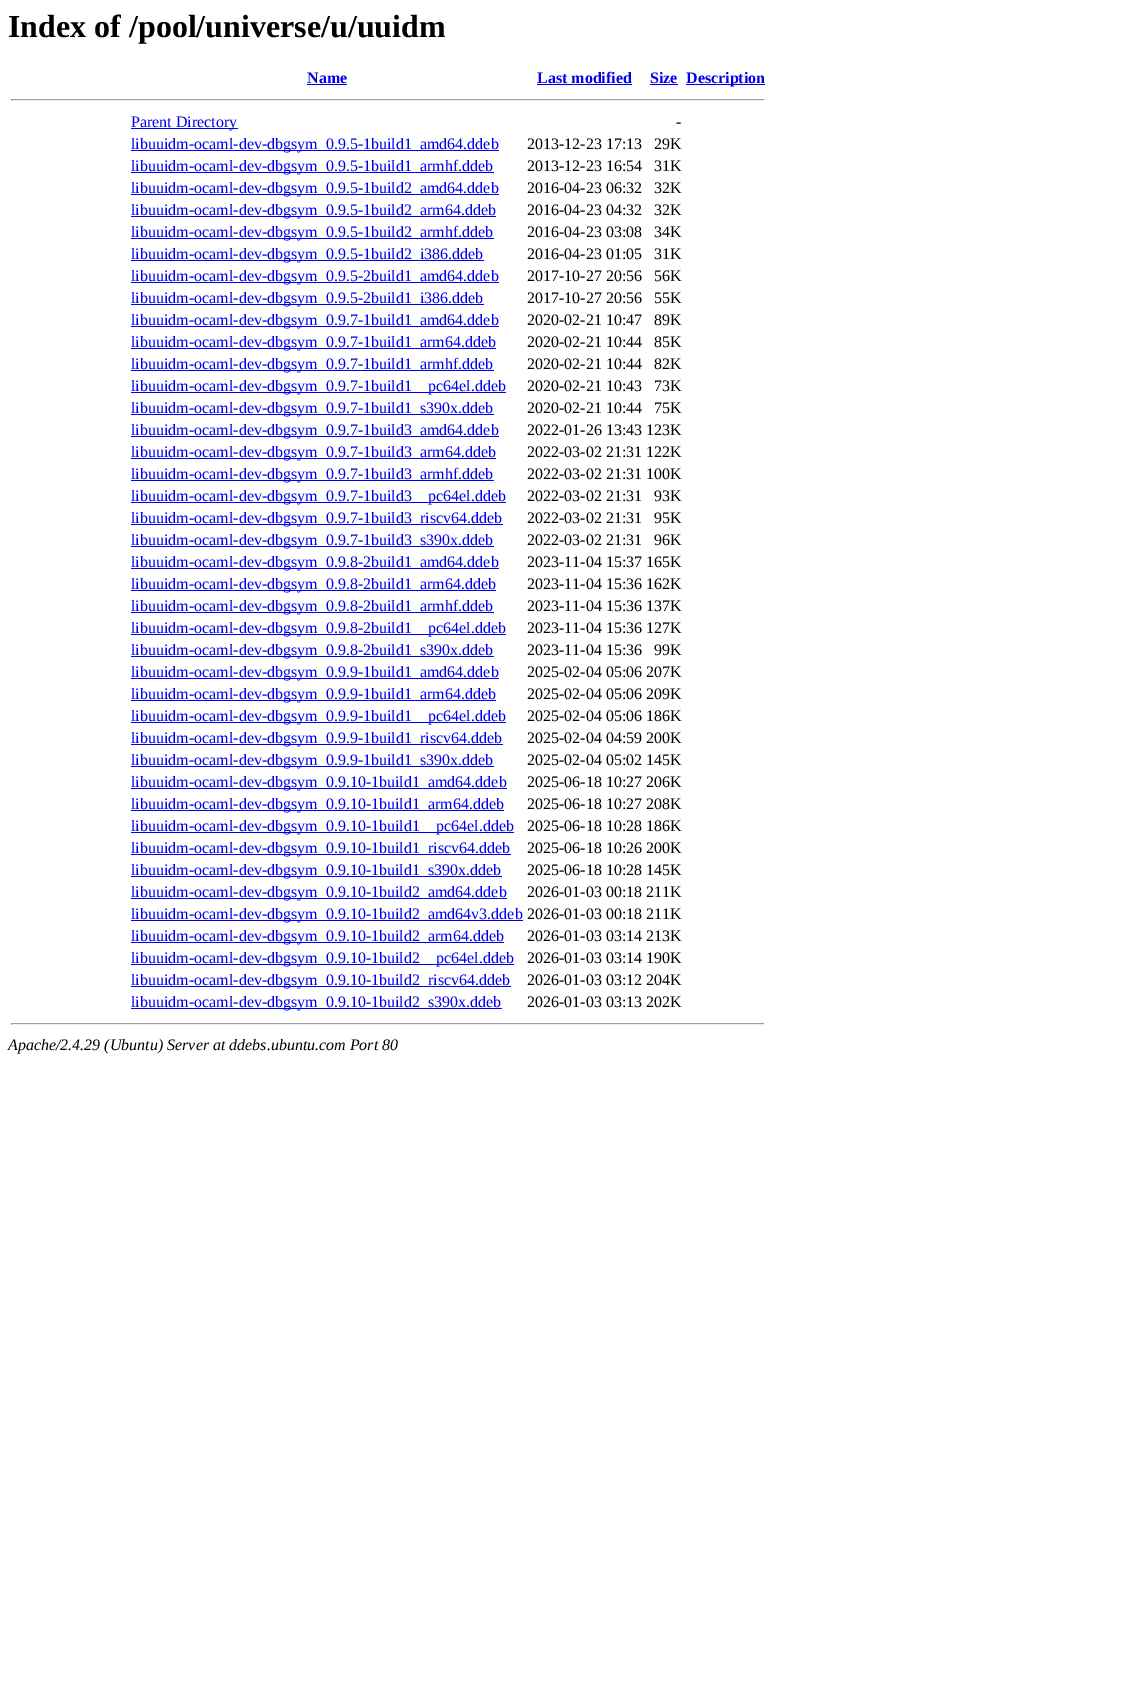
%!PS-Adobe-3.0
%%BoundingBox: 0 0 1147 1702
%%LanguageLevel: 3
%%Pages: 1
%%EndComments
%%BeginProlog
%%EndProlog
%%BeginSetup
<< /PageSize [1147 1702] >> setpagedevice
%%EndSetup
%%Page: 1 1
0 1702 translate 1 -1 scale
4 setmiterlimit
1 setgray
0 0 1147 1702 rectfill
0 0 0.933 setrgbcolor
307 84 40 1 rectfill
537 84 95 1 rectfill
650 84 28 1 rectfill
686 84 79 1 rectfill
0.624 setgray
11 99 754 1 rectfill
0.933 setgray
764 99 1 2 rectfill
11 100 754 1 rectfill
0.624 setgray
11 99 1 2 rectfill
0 0 0.933 setrgbcolor
131 128 107 1 rectfill
131 150 368 1 rectfill
131 172 363 1 rectfill
131 194 368 1 rectfill
131 216 365 1 rectfill
131 238 363 1 rectfill
131 260 353 1 rectfill
131 282 368 1 rectfill
131 304 353 1 rectfill
131 326 368 1 rectfill
131 348 365 1 rectfill
131 370 363 1 rectfill
131 392 375 1 rectfill
131 414 363 1 rectfill
131 436 368 1 rectfill
131 458 365 1 rectfill
131 480 363 1 rectfill
131 502 375 1 rectfill
131 524 372 1 rectfill
131 546 363 1 rectfill
131 568 368 1 rectfill
131 590 365 1 rectfill
131 612 363 1 rectfill
131 634 375 1 rectfill
131 656 363 1 rectfill
131 678 368 1 rectfill
131 700 365 1 rectfill
131 722 375 1 rectfill
131 744 372 1 rectfill
131 766 363 1 rectfill
131 788 376 1 rectfill
131 810 373 1 rectfill
131 832 383 1 rectfill
131 854 380 1 rectfill
131 876 371 1 rectfill
131 898 376 1 rectfill
131 920 392 1 rectfill
131 942 373 1 rectfill
131 964 383 1 rectfill
131 986 380 1 rectfill
131 1008 371 1 rectfill
0.624 setgray
11 1023 754 1 rectfill
0.933 setgray
764 1023 1 2 rectfill
11 1024 754 1 rectfill
0.624 setgray
11 1023 1 2 rectfill
/LiberationSerif-Bold [32 0 0 -32 0 0] selectfont
0 setgray
8 37 moveto (Index of /pool/universe/u/uuidm) show
/LiberationSerif-Bold [16 0 0 -16 0 0] selectfont
0 0 0.933 setrgbcolor
307 83 moveto (Name) show
537 83 moveto (Last modified) show
650 83 moveto (Size) show
686 83 moveto (Description) show
/LiberationSerif-Regular [16 0 0 -16 0 0] selectfont
131 127 moveto (Parent Directory) show
0 setgray
676 127 moveto (-) show
0 0 0.933 setrgbcolor
131 149 moveto (libuuidm-ocaml-dev-dbgsym_0.9.5-1build1_amd64.ddeb) show
0 setgray
527 149 moveto (2013-12-23 17:13) show
654 149 moveto (29K) show
0 0 0.933 setrgbcolor
131 171 moveto (libuuidm-ocaml-dev-dbgsym_0.9.5-1build1_armhf.ddeb) show
0 setgray
527 171 moveto (2013-12-23 16:54) show
654 171 moveto (31K) show
0 0 0.933 setrgbcolor
131 193 moveto (libuuidm-ocaml-dev-dbgsym_0.9.5-1build2_amd64.ddeb) show
0 setgray
527 193 moveto (2016-04-23 06:32) show
654 193 moveto (32K) show
0 0 0.933 setrgbcolor
131 215 moveto (libuuidm-ocaml-dev-dbgsym_0.9.5-1build2_arm64.ddeb) show
0 setgray
527 215 moveto (2016-04-23 04:32) show
654 215 moveto (32K) show
0 0 0.933 setrgbcolor
131 237 moveto (libuuidm-ocaml-dev-dbgsym_0.9.5-1build2_armhf.ddeb) show
0 setgray
527 237 moveto (2016-04-23 03:08) show
654 237 moveto (34K) show
0 0 0.933 setrgbcolor
131 259 moveto (libuuidm-ocaml-dev-dbgsym_0.9.5-1build2_i386.ddeb) show
0 setgray
527 259 moveto (2016-04-23 01:05) show
654 259 moveto (31K) show
0 0 0.933 setrgbcolor
131 281 moveto (libuuidm-ocaml-dev-dbgsym_0.9.5-2build1_amd64.ddeb) show
0 setgray
527 281 moveto (2017-10-27 20:56) show
654 281 moveto (56K) show
0 0 0.933 setrgbcolor
131 303 moveto (libuuidm-ocaml-dev-dbgsym_0.9.5-2build1_i386.ddeb) show
0 setgray
527 303 moveto (2017-10-27 20:56) show
654 303 moveto (55K) show
0 0 0.933 setrgbcolor
131 325 moveto (libuuidm-ocaml-dev-dbgsym_0.9.7-1build1_amd64.ddeb) show
0 setgray
527 325 moveto (2020-02-21 10:47) show
654 325 moveto (89K) show
0 0 0.933 setrgbcolor
131 347 moveto (libuuidm-ocaml-dev-dbgsym_0.9.7-1build1_arm64.ddeb) show
0 setgray
527 347 moveto (2020-02-21 10:44) show
654 347 moveto (85K) show
0 0 0.933 setrgbcolor
131 369 moveto (libuuidm-ocaml-dev-dbgsym_0.9.7-1build1_armhf.ddeb) show
0 setgray
527 369 moveto (2020-02-21 10:44) show
654 369 moveto (82K) show
0 0 0.933 setrgbcolor
131 391 moveto (libuuidm-ocaml-dev-dbgsym_0.9.7-1build1) show
428 391 moveto (pc64el.ddeb) show
0 setgray
527 391 moveto (2020-02-21 10:43) show
654 391 moveto (73K) show
0 0 0.933 setrgbcolor
131 413 moveto (libuuidm-ocaml-dev-dbgsym_0.9.7-1build1_s390x.ddeb) show
0 setgray
527 413 moveto (2020-02-21 10:44) show
654 413 moveto (75K) show
0 0 0.933 setrgbcolor
131 435 moveto (libuuidm-ocaml-dev-dbgsym_0.9.7-1build3_amd64.ddeb) show
0 setgray
527 435 moveto (2022-01-26 13:43 123K) show
0 0 0.933 setrgbcolor
131 457 moveto (libuuidm-ocaml-dev-dbgsym_0.9.7-1build3_arm64.ddeb) show
0 setgray
527 457 moveto (2022-03-02 21:31 122K) show
0 0 0.933 setrgbcolor
131 479 moveto (libuuidm-ocaml-dev-dbgsym_0.9.7-1build3_armhf.ddeb) show
0 setgray
527 479 moveto (2022-03-02 21:31 100K) show
0 0 0.933 setrgbcolor
131 501 moveto (libuuidm-ocaml-dev-dbgsym_0.9.7-1build3) show
428 501 moveto (pc64el.ddeb) show
0 setgray
527 501 moveto (2022-03-02 21:31) show
654 501 moveto (93K) show
0 0 0.933 setrgbcolor
131 523 moveto (libuuidm-ocaml-dev-dbgsym_0.9.7-1build3_riscv64.ddeb) show
0 setgray
527 523 moveto (2022-03-02 21:31) show
654 523 moveto (95K) show
0 0 0.933 setrgbcolor
131 545 moveto (libuuidm-ocaml-dev-dbgsym_0.9.7-1build3_s390x.ddeb) show
0 setgray
527 545 moveto (2022-03-02 21:31) show
654 545 moveto (96K) show
0 0 0.933 setrgbcolor
131 567 moveto (libuuidm-ocaml-dev-dbgsym_0.9.8-2build1_amd64.ddeb) show
0 setgray
527 567 moveto (2023-11-04 15:37 165K) show
0 0 0.933 setrgbcolor
131 589 moveto (libuuidm-ocaml-dev-dbgsym_0.9.8-2build1_arm64.ddeb) show
0 setgray
527 589 moveto (2023-11-04 15:36 162K) show
0 0 0.933 setrgbcolor
131 611 moveto (libuuidm-ocaml-dev-dbgsym_0.9.8-2build1_armhf.ddeb) show
0 setgray
527 611 moveto (2023-11-04 15:36 137K) show
0 0 0.933 setrgbcolor
131 633 moveto (libuuidm-ocaml-dev-dbgsym_0.9.8-2build1) show
428 633 moveto (pc64el.ddeb) show
0 setgray
527 633 moveto (2023-11-04 15:36 127K) show
0 0 0.933 setrgbcolor
131 655 moveto (libuuidm-ocaml-dev-dbgsym_0.9.8-2build1_s390x.ddeb) show
0 setgray
527 655 moveto (2023-11-04 15:36) show
654 655 moveto (99K) show
0 0 0.933 setrgbcolor
131 677 moveto (libuuidm-ocaml-dev-dbgsym_0.9.9-1build1_amd64.ddeb) show
0 setgray
527 677 moveto (2025-02-04 05:06 207K) show
0 0 0.933 setrgbcolor
131 699 moveto (libuuidm-ocaml-dev-dbgsym_0.9.9-1build1_arm64.ddeb) show
0 setgray
527 699 moveto (2025-02-04 05:06 209K) show
0 0 0.933 setrgbcolor
131 721 moveto (libuuidm-ocaml-dev-dbgsym_0.9.9-1build1) show
428 721 moveto (pc64el.ddeb) show
0 setgray
527 721 moveto (2025-02-04 05:06 186K) show
0 0 0.933 setrgbcolor
131 743 moveto (libuuidm-ocaml-dev-dbgsym_0.9.9-1build1_riscv64.ddeb) show
0 setgray
527 743 moveto (2025-02-04 04:59 200K) show
0 0 0.933 setrgbcolor
131 765 moveto (libuuidm-ocaml-dev-dbgsym_0.9.9-1build1_s390x.ddeb) show
0 setgray
527 765 moveto (2025-02-04 05:02 145K) show
0 0 0.933 setrgbcolor
131 787 moveto (libuuidm-ocaml-dev-dbgsym_0.9.10-1build1_amd64.ddeb) show
0 setgray
527 787 moveto (2025-06-18 10:27 206K) show
0 0 0.933 setrgbcolor
131 809 moveto (libuuidm-ocaml-dev-dbgsym_0.9.10-1build1_arm64.ddeb) show
0 setgray
527 809 moveto (2025-06-18 10:27 208K) show
0 0 0.933 setrgbcolor
131 831 moveto (libuuidm-ocaml-dev-dbgsym_0.9.10-1build1) show
436 831 moveto (pc64el.ddeb) show
0 setgray
527 831 moveto (2025-06-18 10:28 186K) show
0 0 0.933 setrgbcolor
131 853 moveto (libuuidm-ocaml-dev-dbgsym_0.9.10-1build1_riscv64.ddeb) show
0 setgray
527 853 moveto (2025-06-18 10:26 200K) show
0 0 0.933 setrgbcolor
131 875 moveto (libuuidm-ocaml-dev-dbgsym_0.9.10-1build1_s390x.ddeb) show
0 setgray
527 875 moveto (2025-06-18 10:28 145K) show
0 0 0.933 setrgbcolor
131 897 moveto (libuuidm-ocaml-dev-dbgsym_0.9.10-1build2_amd64.ddeb) show
0 setgray
527 897 moveto (2026-01-03 00:18 211K) show
0 0 0.933 setrgbcolor
131 919 moveto (libuuidm-ocaml-dev-dbgsym_0.9.10-1build2_amd64v3.ddeb) show
0 setgray
527 919 moveto (2026-01-03 00:18 211K) show
0 0 0.933 setrgbcolor
131 941 moveto (libuuidm-ocaml-dev-dbgsym_0.9.10-1build2_arm64.ddeb) show
0 setgray
527 941 moveto (2026-01-03 03:14 213K) show
0 0 0.933 setrgbcolor
131 963 moveto (libuuidm-ocaml-dev-dbgsym_0.9.10-1build2) show
436 963 moveto (pc64el.ddeb) show
0 setgray
527 963 moveto (2026-01-03 03:14 190K) show
0 0 0.933 setrgbcolor
131 985 moveto (libuuidm-ocaml-dev-dbgsym_0.9.10-1build2_riscv64.ddeb) show
0 setgray
527 985 moveto (2026-01-03 03:12 204K) show
0 0 0.933 setrgbcolor
131 1007 moveto (libuuidm-ocaml-dev-dbgsym_0.9.10-1build2_s390x.ddeb) show
0 setgray
527 1007 moveto (2026-01-03 03:13 202K) show
/LiberationSerif-Italic [16 0 0 -16 0 0] selectfont
8 1050 moveto (Apache/2.4.29 \(Ubuntu\) Server at ddebs.ubuntu.com Port 80) show
showpage
%%EOF
